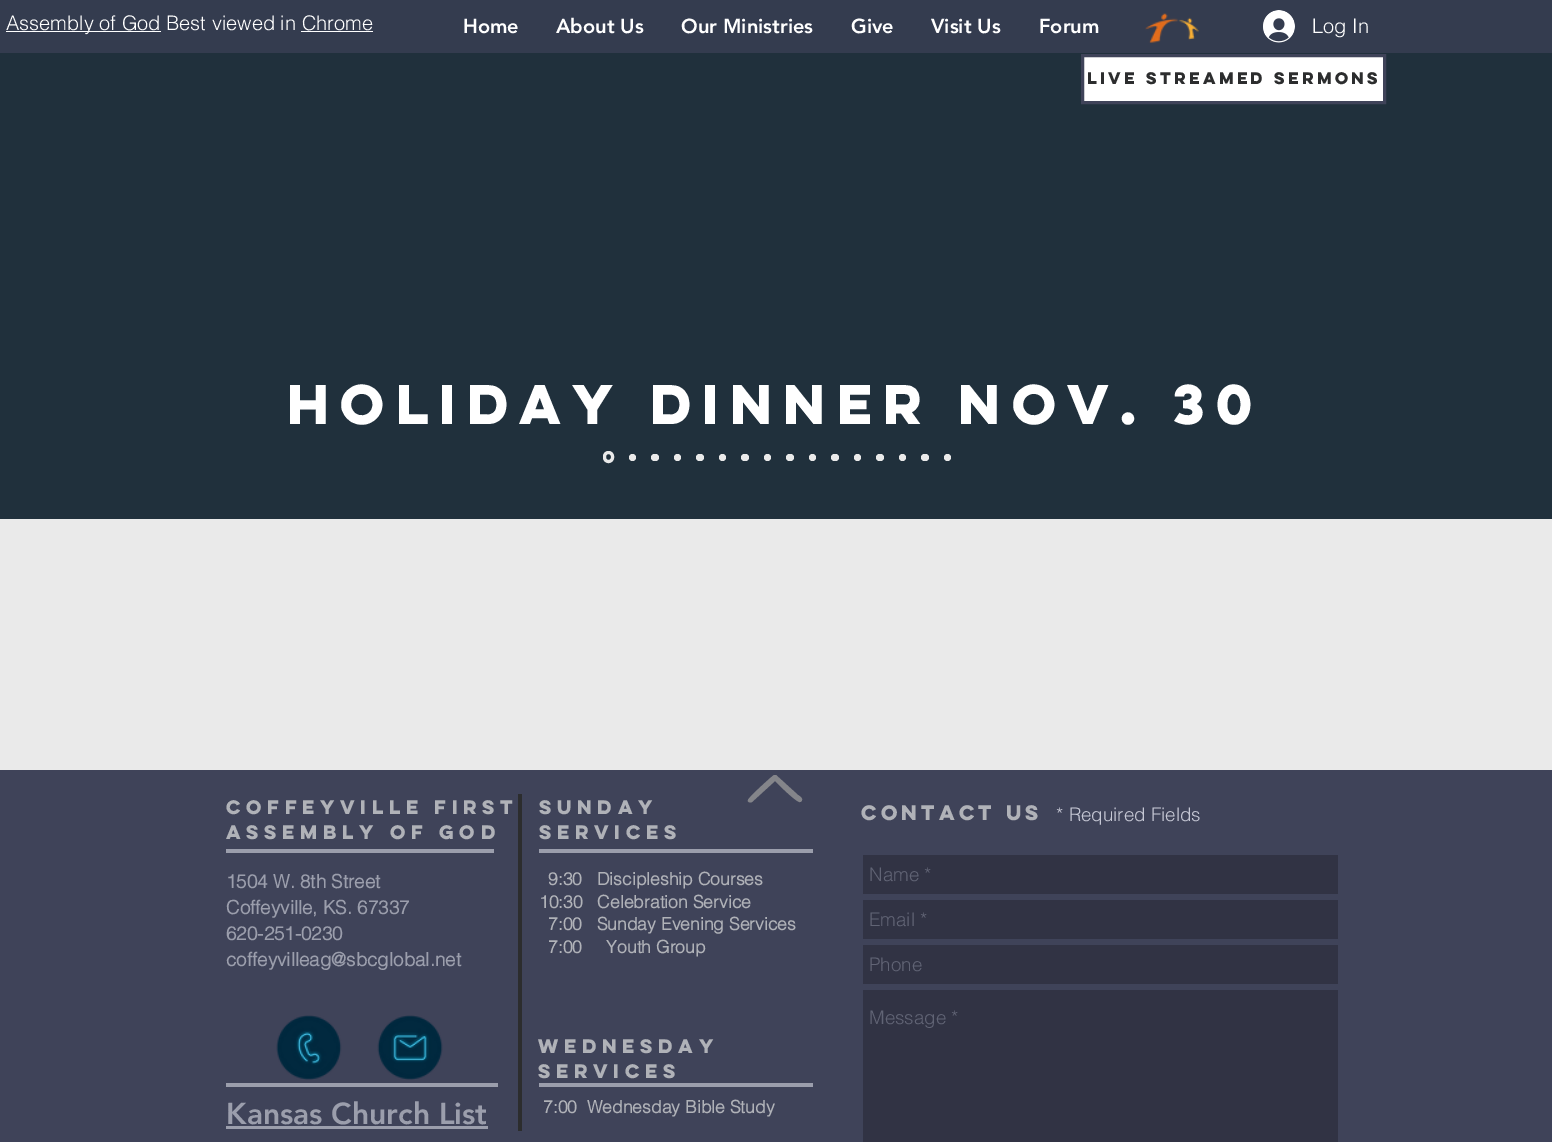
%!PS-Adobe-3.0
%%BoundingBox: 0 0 1552 1142
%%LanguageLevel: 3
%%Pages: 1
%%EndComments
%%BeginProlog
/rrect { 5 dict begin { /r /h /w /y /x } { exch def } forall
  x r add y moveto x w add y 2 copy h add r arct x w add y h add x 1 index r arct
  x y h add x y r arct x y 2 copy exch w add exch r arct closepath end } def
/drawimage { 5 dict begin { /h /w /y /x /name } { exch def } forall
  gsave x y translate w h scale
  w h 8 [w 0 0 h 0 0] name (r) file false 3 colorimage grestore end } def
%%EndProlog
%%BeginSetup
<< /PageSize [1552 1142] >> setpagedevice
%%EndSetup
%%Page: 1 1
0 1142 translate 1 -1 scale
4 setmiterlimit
0.918 setgray
0 0 1552 1142 rectfill
0.204 0.235 0.31 setrgbcolor
0 0 1552 53 rectfill
1 setgray
6 31 155 1 rectfill
301 31 72 1 rectfill
(images/1.raw) 1145 13 54 30 drawimage
(images/2.raw) 1263 10 32 33 drawimage
0.125 0.188 0.235 setrgbcolor
0 53 1552 466 rectfill
1 setgray
newpath 1082.5 55.5 moveto 1384.5 55.5 lineto 1384.5 102.5 lineto 1082.5 102.5 lineto closepath gsave fill grestore
0.247 0.263 0.349 setrgbcolor
3 setlinewidth
stroke
0.918 setgray
604.5 452.5 8 9 4 rrect stroke
newpath 632.5 457.5 3.5 0 360 arc closepath fill
651 454 8 7 3.5 rrect fill
newpath 677.5 457.5 3.5 0 360 arc closepath fill
696 454 8 7 3.5 rrect fill
newpath 722.5 457.5 3.5 0 360 arc closepath fill
741 454 8 7 3.5 rrect fill
newpath 767.5 457.5 3.5 0 360 arc closepath fill
786 454 8 7 3.5 rrect fill
newpath 812.5 457.5 3.5 0 360 arc closepath fill
831 454 8 7 3.5 rrect fill
newpath 857.5 457.5 3.5 0 360 arc closepath fill
876 454 8 7 3.5 rrect fill
newpath 902.5 457.5 3.5 0 360 arc closepath fill
921 454 8 7 3.5 rrect fill
newpath 947.5 457.5 3.5 0 360 arc closepath fill
0.247 0.263 0.349 setrgbcolor
0 770 1552 372 rectfill
0.518 0.522 0.541 setrgbcolor
newpath 800 802 moveto 797 803 778 784 775 781 curveto 752 802 lineto 750 803 747 802 748 800 curveto 748 798 771 777 774 775 curveto 776 775 lineto 798 795 lineto 798 795 803 798 802 800 curveto 802 801 801 802 800 802 curveto closepath fill
0.173 0.176 0.18 setrgbcolor
518 794 4 337 rectfill
0.608 0.62 0.675 setrgbcolor
226 849 268 4 rectfill
539 849 274 4 rectfill
0.192 0.2 0.267 setrgbcolor
863 855 475 39 rectfill
863 900 475 39 rectfill
863 945 475 39 rectfill
863 990 475 152 rectfill
(images/3.raw) 276 1015 66 65 drawimage
(images/4.raw) 377 1015 66 65 drawimage
0.608 0.62 0.675 setrgbcolor
226 1083 272 4 rectfill
539 1083 274 4 rectfill
226 1126 262 3 rectfill
/helvetica-Light [20 0 0 -20 0 0] selectfont
1 setgray
6 30 moveto (Assembly of God Best viewed in Chrome) show
/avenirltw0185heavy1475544-Black [20 0 0 -20 0 0] selectfont
463 33 moveto (Home) show
556 33 moveto (About Us) show
681 33 moveto (Our Ministries) show
851 33 moveto (Give) show
931 33 moveto (Visit Us) show
1039 33 moveto (Forum) show
/helvetica-Light [20 0 0 -20 0 0] selectfont
1312 33 moveto (Log In) show
/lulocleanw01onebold-Bold [15 0 0 -15 0 0] selectfont
0.173 0.176 0.18 setrgbcolor
1087 84 moveto (Live Streamed Sermons) show
/lulocleanw01onebold-Bold [50 0 0 -50 0 0] selectfont
1 setgray
287 424 moveto (Holiday Dinner Nov. 30) show
/lulocleanw01onebold-Bold [17.5 0 0 -17.5 0 0] selectfont
0.69 0.698 0.722 setrgbcolor
226 814 moveto 1.75 0 (Coffeyville First) ashow
226 839 moveto 1.75 0 (Assembly of God) ashow
539 814 moveto 1.75 0 (Sunday) ashow
539 839 moveto 1.75 0 (Services) ashow
/lulocleanw01onebold-Bold [18.75 0 0 -18.75 0 0] selectfont
861 820 moveto (Contact Us) show
/helvetica-Light [18.75 0 0 -18.75 0 0] selectfont
0.776 0.784 0.835 setrgbcolor
1056 821 moveto (* Required Fields) show
/helvetica-Bold [18.75 0 0 -18.75 0 0] selectfont
0.608 0.62 0.675 setrgbcolor
226 888 moveto (1504 W. 8th Street) show
226 914 moveto (Coffeyville, KS. 67337) show
226 940 moveto (620-251-0230) show
226 966 moveto (coffeyvilleag@sbcglobal.net) show
/helvetica-Bold [17.5 0 0 -17.5 0 0] selectfont
0.69 0.698 0.722 setrgbcolor
548 885 moveto (9:30   Discipleship Courses) show
539 908 moveto (10:30   Celebration Service) show
548 930 moveto (7:00   Sunday Evening Services) show
548 953 moveto (7:00     Youth Group) show
/helvetica-Light [18.75 0 0 -18.75 0 0] selectfont
0.38 0.392 0.459 setrgbcolor
869 881 moveto (Name *) show
869 926 moveto (Email *) show
869 971 moveto (Phone) show
869 1024 moveto (Message *) show
/lulocleanw01onebold-Bold [17.5 0 0 -17.5 0 0] selectfont
0.69 0.698 0.722 setrgbcolor
538 1053 moveto 1.75 0 (Wednesday) ashow
538 1078 moveto 1.75 0 (Services) ashow
/avenirltw0185heavy1475544-Black [30 0 0 -30 0 0] selectfont
0.608 0.62 0.675 setrgbcolor
226 1124 moveto (Kansas Church List) show
/helvetica-Bold [17.5 0 0 -17.5 0 0] selectfont
0.69 0.698 0.722 setrgbcolor
543 1113 moveto (7:00  Wednesday Bible Study) show
showpage
%%EOF
